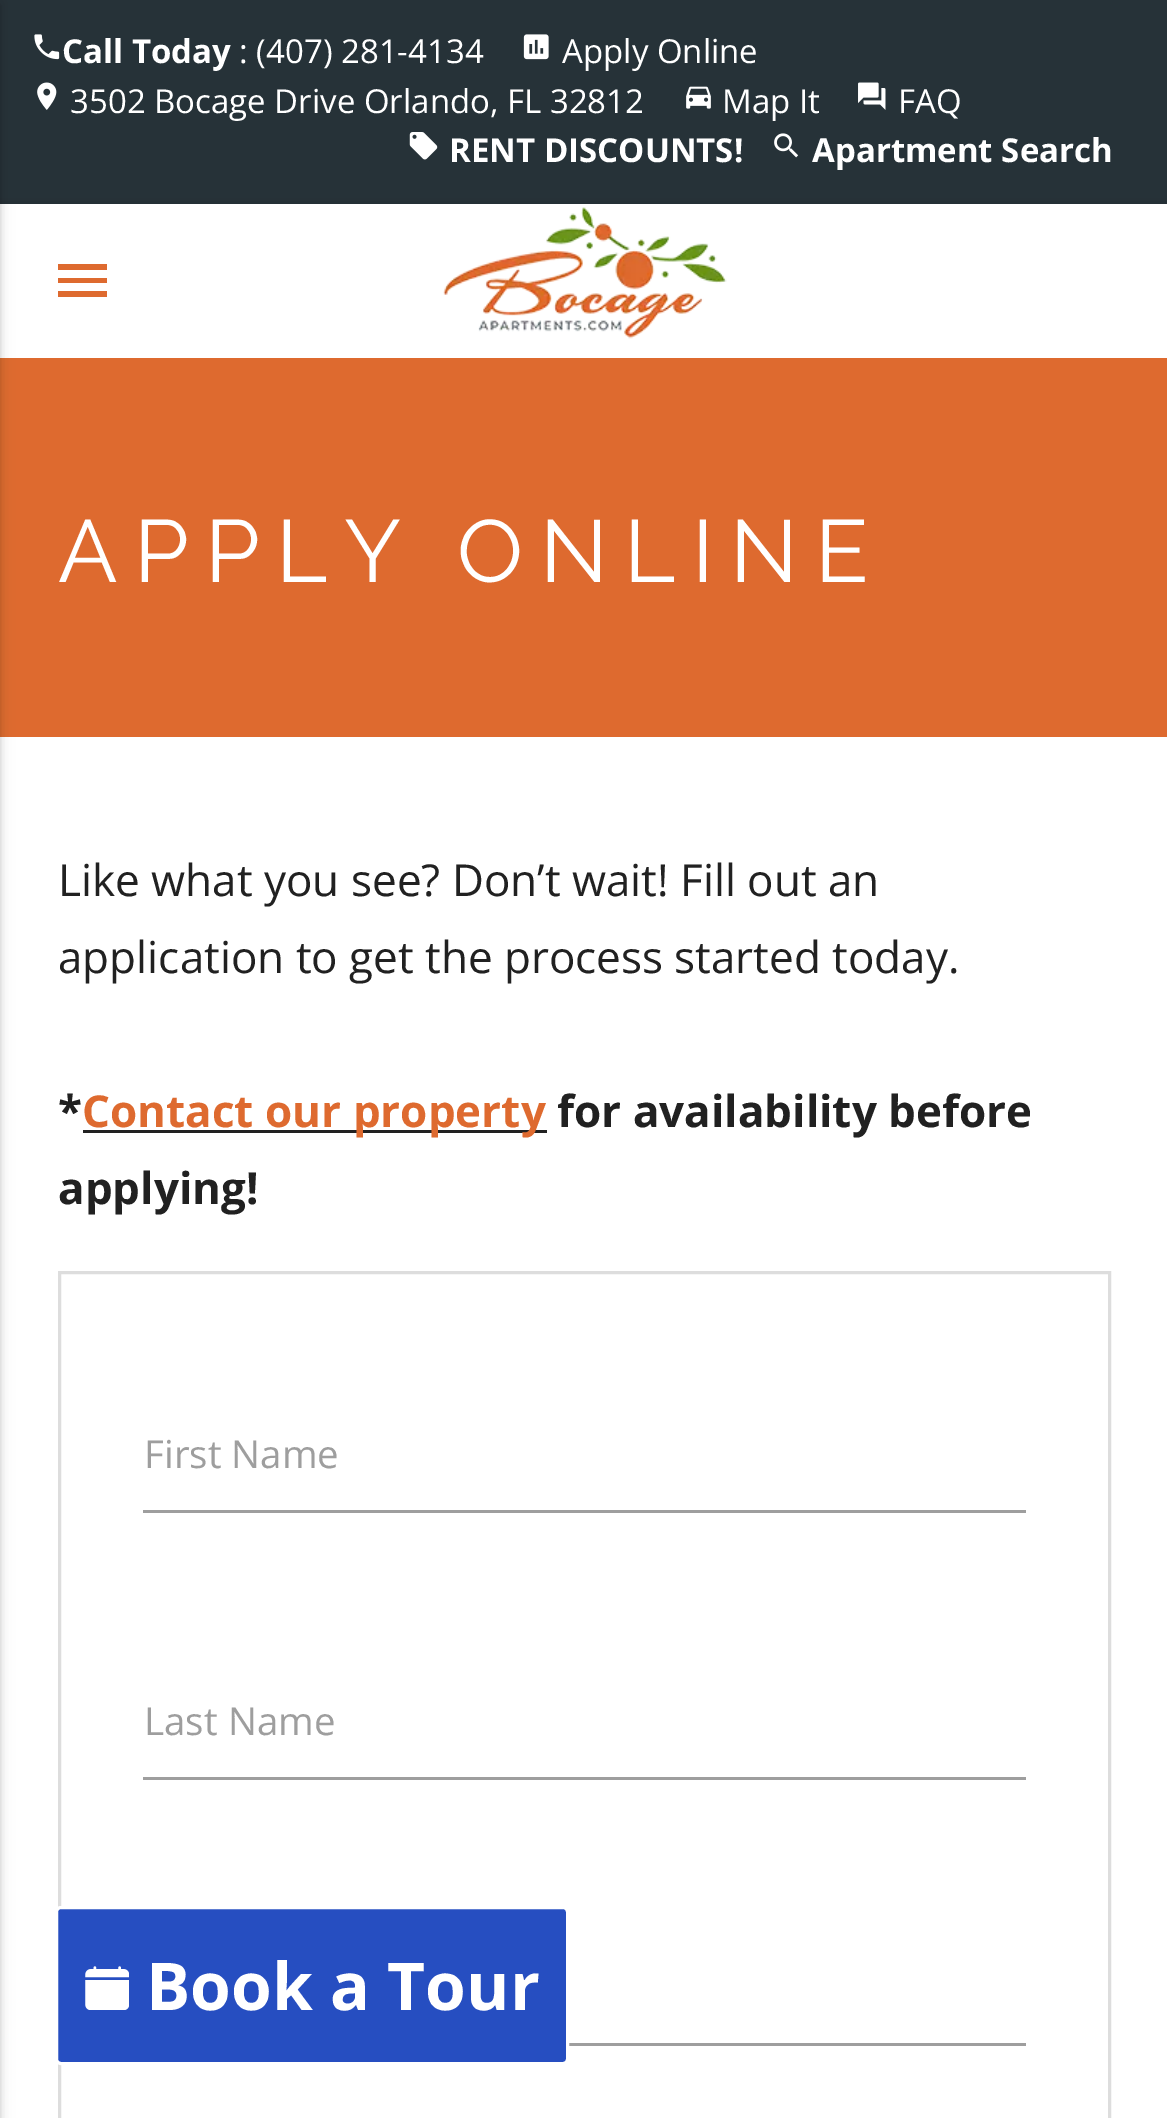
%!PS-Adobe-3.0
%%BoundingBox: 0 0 1167 2118
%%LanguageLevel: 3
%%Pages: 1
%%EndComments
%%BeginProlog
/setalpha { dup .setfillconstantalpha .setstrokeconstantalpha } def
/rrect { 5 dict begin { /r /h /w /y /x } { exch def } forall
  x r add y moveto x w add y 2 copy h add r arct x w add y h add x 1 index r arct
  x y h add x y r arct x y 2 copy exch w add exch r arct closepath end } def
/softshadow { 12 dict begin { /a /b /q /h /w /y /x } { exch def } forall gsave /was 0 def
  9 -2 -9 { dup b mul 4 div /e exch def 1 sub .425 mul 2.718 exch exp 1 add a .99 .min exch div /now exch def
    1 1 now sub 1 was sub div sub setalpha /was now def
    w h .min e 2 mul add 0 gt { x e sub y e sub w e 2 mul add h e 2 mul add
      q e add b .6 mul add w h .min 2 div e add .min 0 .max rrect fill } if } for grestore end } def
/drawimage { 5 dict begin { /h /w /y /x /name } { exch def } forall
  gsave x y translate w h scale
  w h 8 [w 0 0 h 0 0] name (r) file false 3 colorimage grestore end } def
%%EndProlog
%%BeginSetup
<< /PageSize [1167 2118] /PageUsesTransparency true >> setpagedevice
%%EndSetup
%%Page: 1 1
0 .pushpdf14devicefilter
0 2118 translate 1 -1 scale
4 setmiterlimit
1 setgray
0 0 1167 2118 rectfill
0.149 0.196 0.22 setrgbcolor
0 0 1167 204 rectfill
0 setgray
0 206 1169 154 0 7 0.12 softshadow
1 setgray
0 204 1167 154 rectfill
0.871 0.416 0.184 setrgbcolor
0 358 1167 379 rectfill
0 setgray
-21 3 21 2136 0 7 0.12 softshadow
-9 6 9 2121 0 3 0.14 softshadow
0.871 0.416 0.184 setrgbcolor
newpath 58 264 moveto 107 264 lineto 107 270 lineto 58 270 lineto closepath 58 283 moveto 58 278 lineto 107 278 lineto 107 283 lineto closepath 58 297 moveto 58 291 lineto 107 291 lineto 107 297 lineto closepath fill
(images/1.raw) 443 207 284 132 drawimage
(images/2.raw) 34 34 26 26 drawimage
(images/3.raw) 523 34 26 26 drawimage
(images/4.raw) 37 82 20 28 drawimage
(images/5.raw) 686 86 25 23 drawimage
(images/6.raw) 858 82 28 28 drawimage
(images/7.raw) 409 132 29 28 drawimage
(images/8.raw) 774 133 25 25 drawimage
0.129 setgray
83 1130 464 3 rectfill
0.867 setgray
3 setlinewidth
59.5 1272.5 1050 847 rectstroke
0.62 setgray
143 1510 883 3 rectfill
143 1777 883 3 rectfill
569 2043 457 3 rectfill
0.149 0.306 0.757 setrgbcolor
56.5 1907.5 511 156 4.5 rrect gsave fill grestore
1 setgray
stroke
(images/9.raw) 85 1966 44 44 drawimage
/OpenSans-Bold [33 0 0 -33 0 0] selectfont
62 63 moveto (Call Today) show
/OpenSans-Regular [33 0 0 -33 0 0] selectfont
239 63 moveto (: \(407\) 281-4134) show
562 63 moveto (Apply Online) show
70 113 moveto (3502 Bocage Drive Orlando, FL 32812) show
722 113 moveto (Map It) show
898 113 moveto (FAQ) show
/OpenSans-Bold [33 0 0 -33 0 0] selectfont
449 162 moveto (RENT DISCOUNTS!) show
812 162 moveto (Apartment Search) show
/Raleway-Regular [88 0 0 -88 0 0] selectfont
58 582 moveto 16.5 0 (APPLY ONLINE) ashow
/OpenSans-Regular [44 0 0 -44 0 0] selectfont
0.129 setgray
58 896 moveto (Like what you see? Don’t wait! Fill out an) show
58 973 moveto (application to get the process started today.) show
/OpenSans-Bold [44 0 0 -44 0 0] selectfont
58 1127 moveto (*) show
0.871 0.416 0.184 setrgbcolor
82 1127 moveto (Contact our property) show
0.129 setgray
557 1127 moveto (for availability before) show
58 1204 moveto (applying!) show
/OpenSans-Regular [38.5 0 0 -38.5 0 0] selectfont
0.62 setgray
144 1468 moveto (First Name) show
144 1735 moveto (Last Name) show
/OpenSans-Bold [66 0 0 -66 0 0] selectfont
1 setgray
146 2010 moveto (Book a Tour) show
.poppdf14devicefilter showpage
%%EOF
